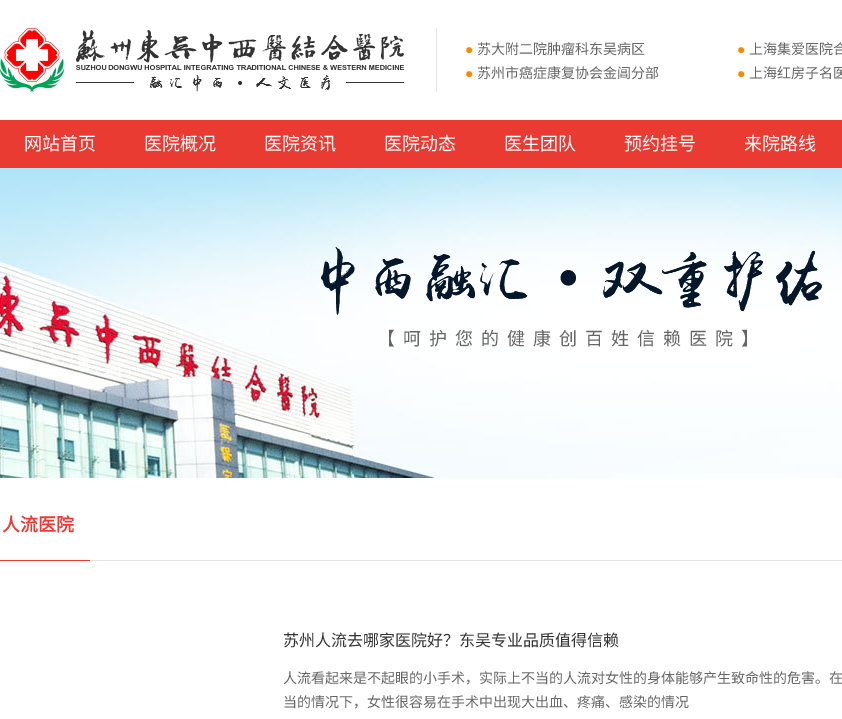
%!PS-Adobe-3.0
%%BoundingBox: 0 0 842 719
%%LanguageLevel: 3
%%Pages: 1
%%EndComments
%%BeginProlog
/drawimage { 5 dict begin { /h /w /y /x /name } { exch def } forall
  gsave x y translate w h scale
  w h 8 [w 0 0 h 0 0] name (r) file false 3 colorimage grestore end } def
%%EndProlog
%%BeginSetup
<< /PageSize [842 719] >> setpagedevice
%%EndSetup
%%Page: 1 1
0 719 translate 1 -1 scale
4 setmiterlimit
1 setgray
0 0 842 719 rectfill
(images/1.raw) 0 28 404 64 drawimage
0.894 0.894 0.898 setrgbcolor
436 28 1 64 rectfill
0.914 0.231 0.196 setrgbcolor
0 120 842 48 rectfill
(images/2.raw) 0 168 842 310 drawimage
(images/3.raw) 321 247 501 68 drawimage
0.894 0.894 0.898 setrgbcolor
90 560 752 1 rectfill
0.914 0.231 0.196 setrgbcolor
0 560 90 1 rectfill
/LiberationSans-Regular [14 0 0 -14 0 0] selectfont
0.992 0.525 0.008 setrgbcolor
465 54 moveto (●) show
/NotoSansCJKSC-Regular [14 0 0 -14 0 0] selectfont
0.4 setgray
477 54 moveto (苏大附二院肿瘤科东吴病区) show
/LiberationSans-Regular [14 0 0 -14 0 0] selectfont
0.992 0.525 0.008 setrgbcolor
465 78 moveto (●) show
/NotoSansCJKSC-Regular [14 0 0 -14 0 0] selectfont
0.4 setgray
477 78 moveto (苏州市癌症康复协会金阊分部) show
/LiberationSans-Regular [14 0 0 -14 0 0] selectfont
0.992 0.525 0.008 setrgbcolor
737 54 moveto (●) show
/NotoSansCJKSC-Regular [14 0 0 -14 0 0] selectfont
0.4 setgray
749 54 moveto (上海集爱医院合) show
/LiberationSans-Regular [14 0 0 -14 0 0] selectfont
0.992 0.525 0.008 setrgbcolor
737 78 moveto (●) show
/NotoSansCJKSC-Regular [14 0 0 -14 0 0] selectfont
0.4 setgray
749 78 moveto (上海红房子名医) show
/NotoSansCJKSC-Regular [18 0 0 -18 0 0] selectfont
1 setgray
24 150 moveto (网站首页) show
144 150 moveto (医院概况) show
264 150 moveto (医院资讯) show
384 150 moveto (医院动态) show
504 150 moveto (医生团队) show
624 150 moveto (预约挂号) show
744 150 moveto (来院路线) show
0.4 setgray
377 345 moveto 8 0 (【呵护您的健康创百姓信赖医院】) ashow
/NotoSansCJKSC-Bold [18 0 0 -18 0 0] selectfont
0.914 0.231 0.196 setrgbcolor
2 531 moveto (人流医院) show
/NotoSansCJKSC-Regular [16 0 0 -16 0 0] selectfont
0.2 setgray
283 646 moveto (苏州人流去哪家医院好？东吴专业品质值得信赖) show
/NotoSansCJKSC-Regular [14 0 0 -14 0 0] selectfont
0.4 setgray
283 683 moveto (人流看起来是不起眼的小手术，实际上不当的人流对女性的身体能够产生致命性的危害。在) show
283 707 moveto (当的情况下，女性很容易在手术中出现大出血、疼痛、感染的情况) show
showpage
%%EOF
